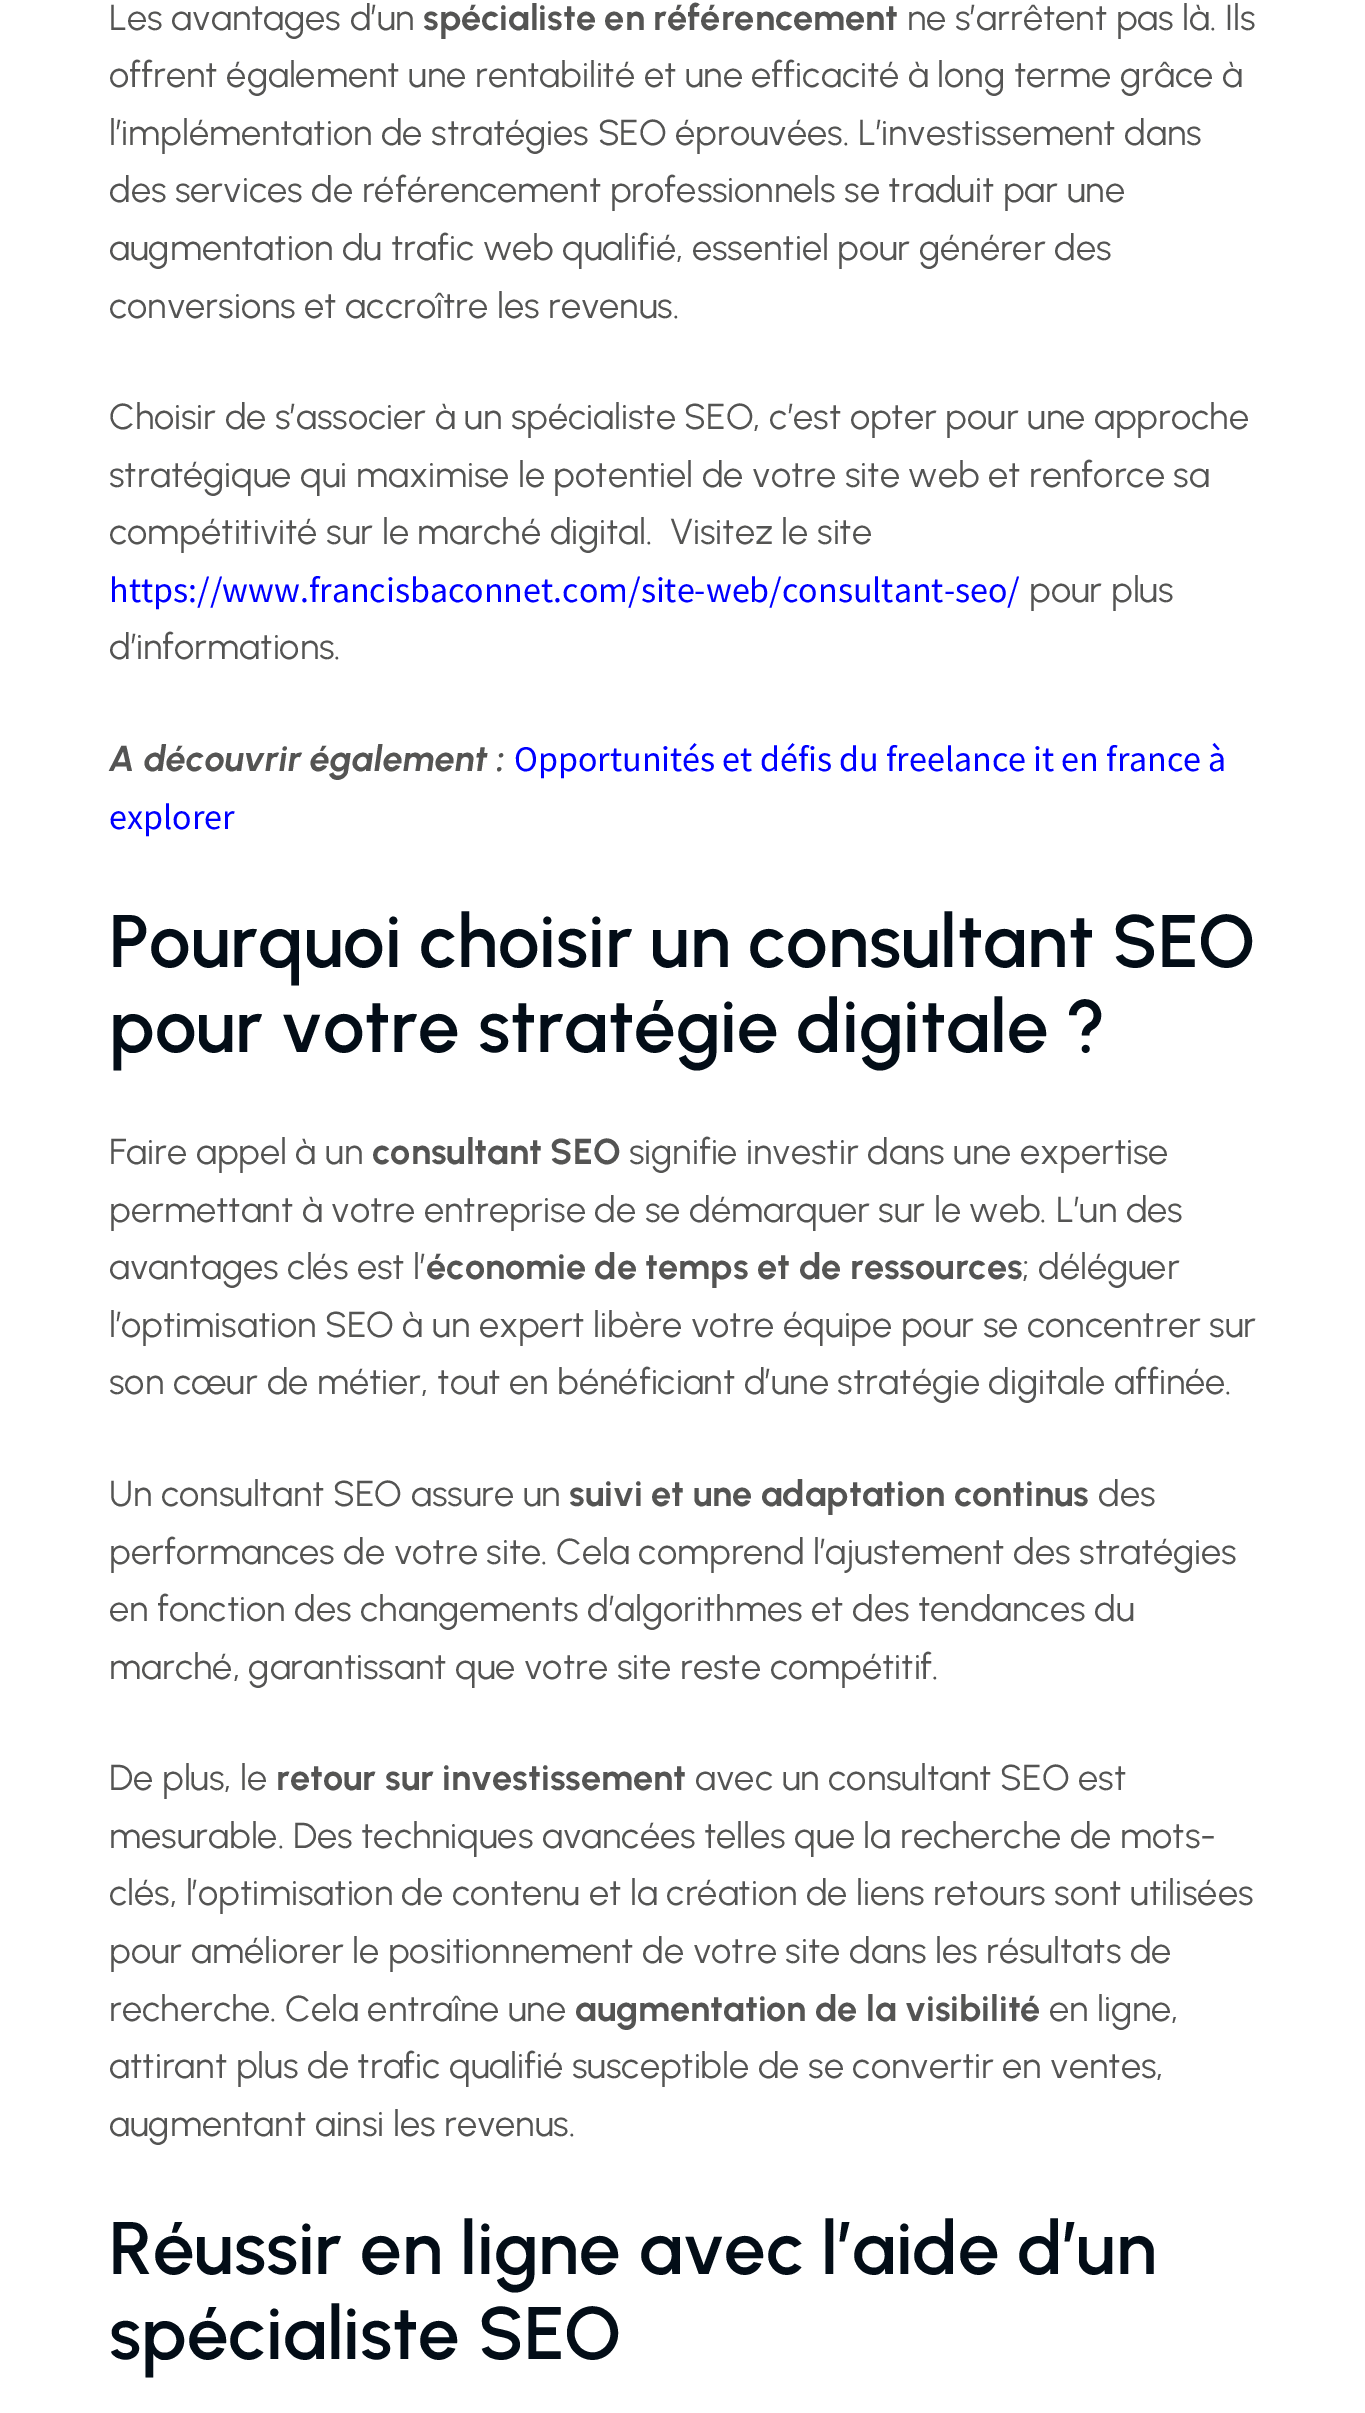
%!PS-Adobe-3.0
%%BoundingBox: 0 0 1365 2413
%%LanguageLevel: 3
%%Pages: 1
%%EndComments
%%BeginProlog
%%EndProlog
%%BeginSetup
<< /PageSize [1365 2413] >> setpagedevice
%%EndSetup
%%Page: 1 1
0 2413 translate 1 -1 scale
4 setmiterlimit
1 setgray
0 0 1365 2413 rectfill
/Urbanist-Regular [36 0 0 -36 0 0] selectfont
0.329 0.329 0.325 setrgbcolor
109 30 moveto (Les avantages d’un) show
/Urbanist-Bold [36 0 0 -36 0 0] selectfont
423 30 moveto (spécialiste en référencement) show
/Urbanist-Regular [36 0 0 -36 0 0] selectfont
907 30 moveto (ne s’arrêtent pas là. Ils) show
109 87 moveto (offrent également une rentabilité et une efficacité à long terme grâce à) show
109 145 moveto (l’implémentation de stratégies SEO éprouvées. L’investissement dans) show
109 202 moveto (des services de référencement professionnels se traduit par une) show
109 260 moveto (augmentation du trafic web qualifié, essentiel pour générer des) show
109 318 moveto (conversions et accroître les revenus.) show
109 429 moveto (Choisir de s’associer à un spécialiste SEO, c’est opter pour une approche) show
109 487 moveto (stratégique qui maximise le potentiel de votre site web et renforce sa) show
109 544 moveto (compétitivité sur le marché digital.  Visitez le site) show
/SourceSansPro-Regular [36 0 0 -36 0 0] selectfont
0 0 1 setrgbcolor
109 602 moveto (https://www.francisbaconnet.com/site-web/consultant-seo/) show
/Urbanist-Regular [36 0 0 -36 0 0] selectfont
0.329 0.329 0.325 setrgbcolor
1029 602 moveto (pour plus) show
109 659 moveto (d’informations.) show
/Urbanist-BoldItalic [36 0 0 -36 0 0] selectfont
109 771 moveto (A découvrir également :) show
/SourceSansPro-Regular [36 0 0 -36 0 0] selectfont
0 0 1 setrgbcolor
514 771 moveto (Opportunités et défis du freelance it en france à) show
109 829 moveto (explorer) show
/Urbanist-SemiBold [74.25 0 0 -74.25 0 0] selectfont
0.012 0.051 0.09 setrgbcolor
109 967 moveto (Pourquoi choisir un consultant SEO) show
109 1052 moveto (pour votre stratégie digitale ?) show
/Urbanist-Regular [36 0 0 -36 0 0] selectfont
0.329 0.329 0.325 setrgbcolor
109 1164 moveto (Faire appel à un) show
/Urbanist-Bold [36 0 0 -36 0 0] selectfont
372 1164 moveto (consultant SEO) show
/Urbanist-Regular [36 0 0 -36 0 0] selectfont
629 1164 moveto (signifie investir dans une expertise) show
109 1222 moveto (permettant à votre entreprise de se démarquer sur le web. L’un des) show
109 1279 moveto (avantages clés est l’) show
/Urbanist-Bold [36 0 0 -36 0 0] selectfont
426 1279 moveto (économie de temps et de ressources) show
/Urbanist-Regular [36 0 0 -36 0 0] selectfont
1022 1279 moveto (; déléguer) show
109 1337 moveto (l’optimisation SEO à un expert libère votre équipe pour se concentrer sur) show
109 1394 moveto (son cœur de métier, tout en bénéficiant d’une stratégie digitale affinée.) show
109 1506 moveto (Un consultant SEO assure un) show
/Urbanist-Bold [36 0 0 -36 0 0] selectfont
569 1506 moveto (suivi et une adaptation continus) show
/Urbanist-Regular [36 0 0 -36 0 0] selectfont
1098 1506 moveto (des) show
109 1564 moveto (performances de votre site. Cela comprend l’ajustement des stratégies) show
109 1621 moveto (en fonction des changements d’algorithmes et des tendances du) show
109 1679 moveto (marché, garantissant que votre site reste compétitif.) show
109 1790 moveto (De plus, le) show
/Urbanist-Bold [36 0 0 -36 0 0] selectfont
276 1790 moveto (retour sur investissement) show
/Urbanist-Regular [36 0 0 -36 0 0] selectfont
695 1790 moveto (avec un consultant SEO est) show
109 1848 moveto (mesurable. Des techniques avancées telles que la recherche de mots-) show
109 1905 moveto (clés, l’optimisation de contenu et la création de liens retours sont utilisées) show
109 1963 moveto (pour améliorer le positionnement de votre site dans les résultats de) show
109 2021 moveto (recherche. Cela entraîne une) show
/Urbanist-Bold [36 0 0 -36 0 0] selectfont
575 2021 moveto (augmentation de la visibilité) show
/Urbanist-Regular [36 0 0 -36 0 0] selectfont
1049 2021 moveto (en ligne,) show
109 2078 moveto (attirant plus de trafic qualifié susceptible de se convertir en ventes,) show
109 2136 moveto (augmentant ainsi les revenus.) show
/Urbanist-SemiBold [74.25 0 0 -74.25 0 0] selectfont
0.012 0.051 0.09 setrgbcolor
109 2274 moveto (Réussir en ligne avec l’aide d’un) show
109 2359 moveto (spécialiste SEO) show
showpage
%%EOF
